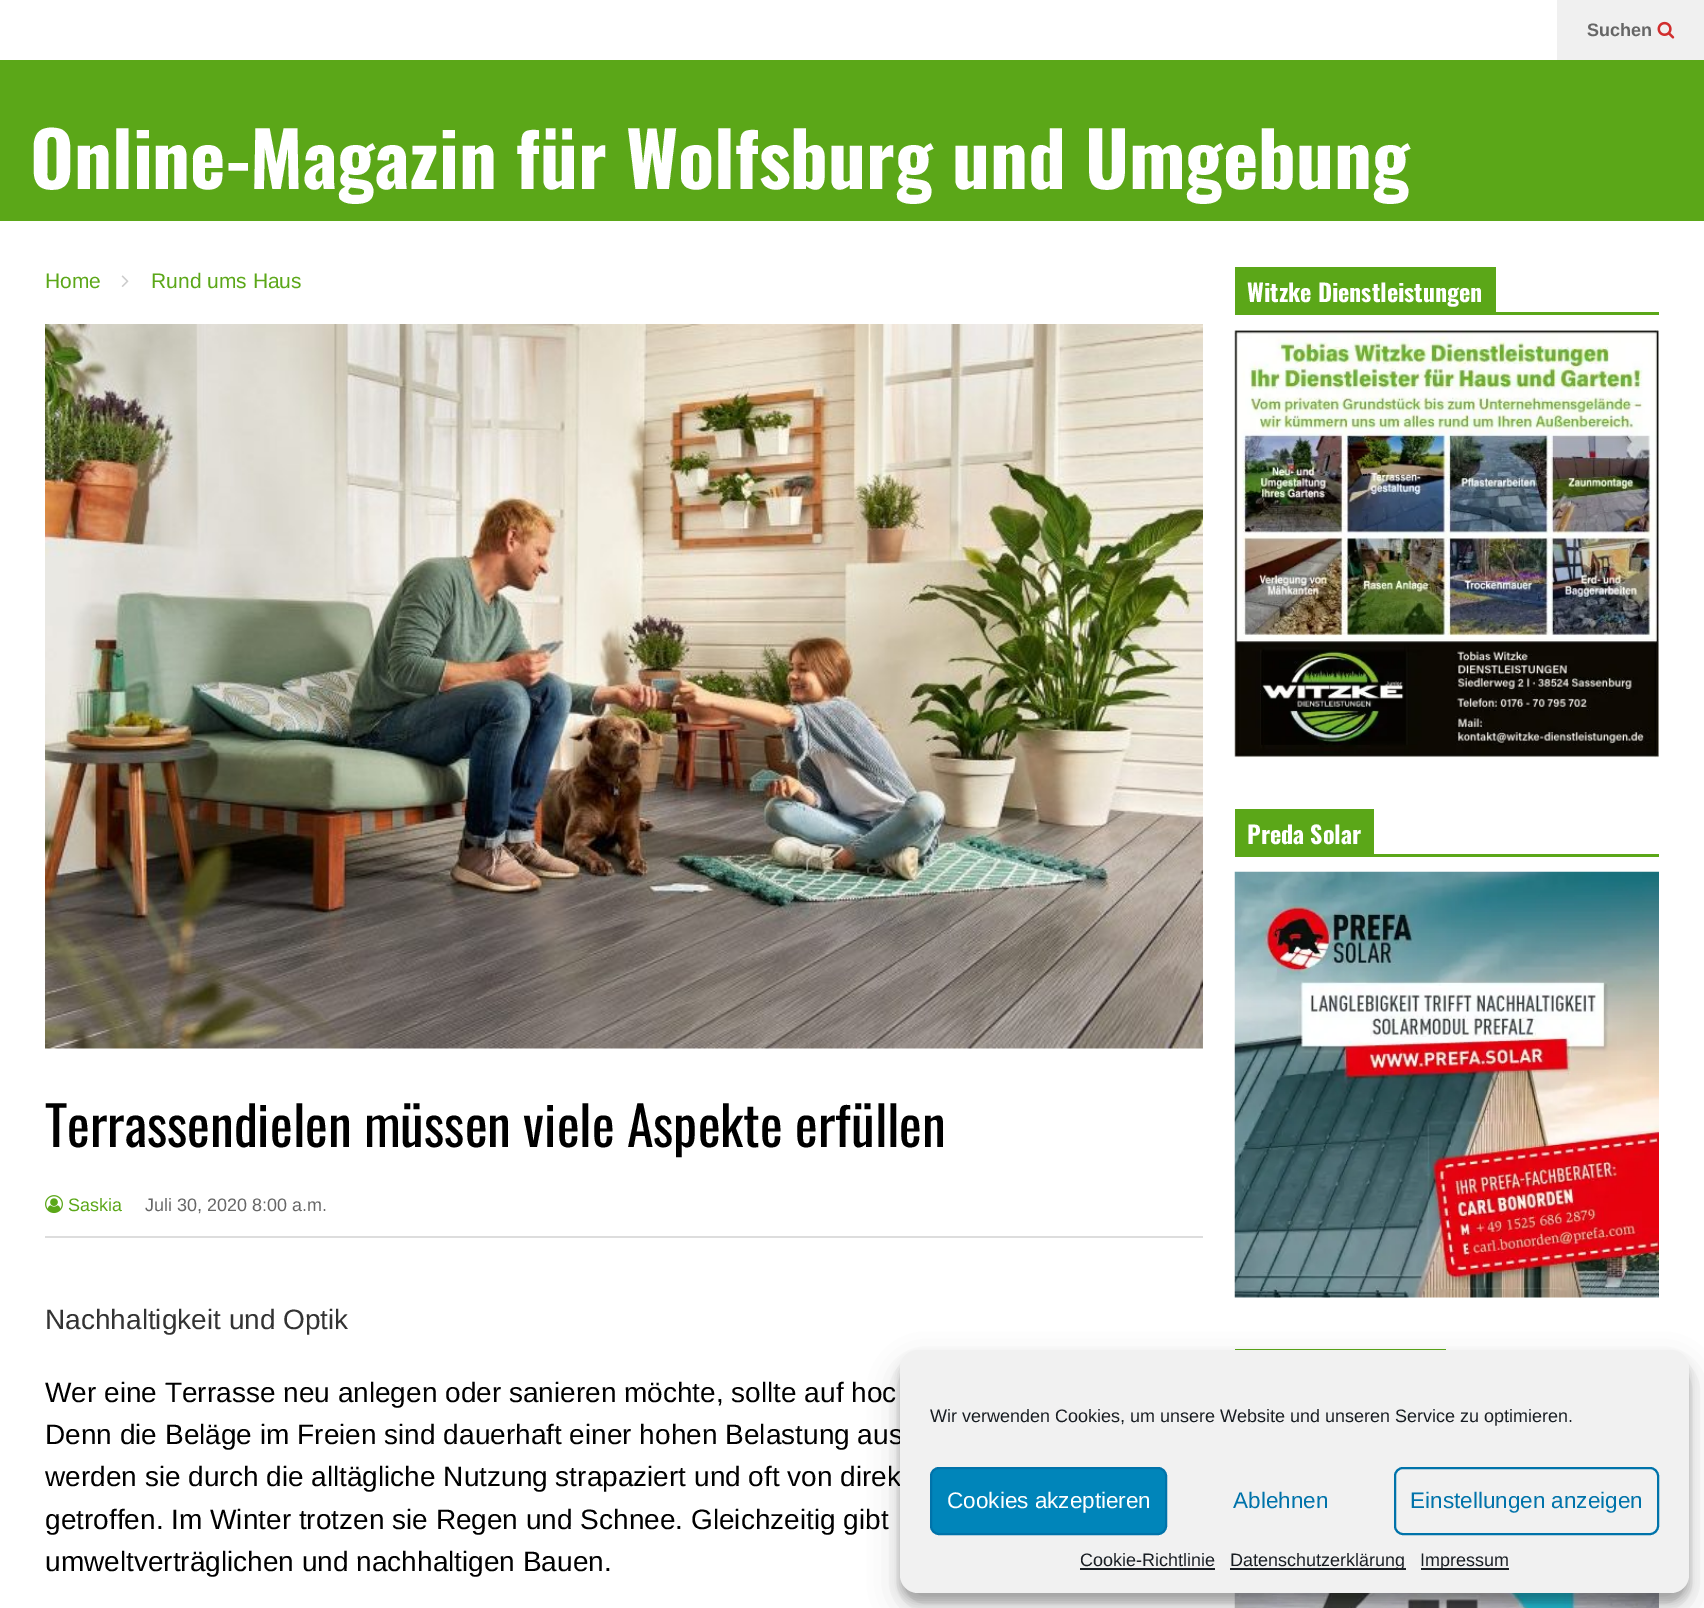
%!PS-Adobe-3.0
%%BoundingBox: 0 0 1704 1608
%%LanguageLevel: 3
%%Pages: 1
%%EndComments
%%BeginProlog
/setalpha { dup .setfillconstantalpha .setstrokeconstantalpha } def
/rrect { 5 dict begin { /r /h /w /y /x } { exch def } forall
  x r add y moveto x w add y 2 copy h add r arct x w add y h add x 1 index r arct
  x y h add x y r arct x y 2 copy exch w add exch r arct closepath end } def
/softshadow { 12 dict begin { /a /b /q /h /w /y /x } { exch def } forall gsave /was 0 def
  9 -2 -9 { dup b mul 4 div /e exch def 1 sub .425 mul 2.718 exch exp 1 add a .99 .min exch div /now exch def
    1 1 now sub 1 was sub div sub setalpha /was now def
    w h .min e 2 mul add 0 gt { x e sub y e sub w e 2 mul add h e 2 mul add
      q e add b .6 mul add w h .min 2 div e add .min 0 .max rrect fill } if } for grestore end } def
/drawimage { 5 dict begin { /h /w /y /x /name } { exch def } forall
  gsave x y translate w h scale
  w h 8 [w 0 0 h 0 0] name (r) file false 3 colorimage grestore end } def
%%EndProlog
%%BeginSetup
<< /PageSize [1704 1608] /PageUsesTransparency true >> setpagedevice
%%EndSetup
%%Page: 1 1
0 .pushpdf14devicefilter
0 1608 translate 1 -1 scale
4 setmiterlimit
1 setgray
0 0 1704 1608 rectfill
0.941 setgray
1557 0 147 60 rectfill
(images/1.raw) 1657 21 18 18 drawimage
0.357 0.655 0.094 setrgbcolor
0 60 1704 161 rectfill
(images/2.raw) 121 275 8 12 drawimage
(images/3.raw) 45 324 1158 725 drawimage
0.867 setgray
45 1236 1158 2 rectfill
(images/4.raw) 45 1195 18 19 drawimage
0.357 0.655 0.094 setrgbcolor
1496 312 163 3 rectfill
1235 267 261 48 rectfill
(images/5.raw) 1234 330 425 428 drawimage
1374 854 285 3 rectfill
1235 809 139 48 rectfill
(images/6.raw) 1234 871 425 427 drawimage
1235 1349 211 1 rectfill
(images/7.raw) 1234 1593 425 15 drawimage
0 setgray
900 1359 789 243 18 4.5 0.23 softshadow
900 1365 789 243 18 15 0.19 softshadow
/LiberationSans-Bold [18 0 0 -18 0 0] selectfont
0.4 setgray
1587 36 moveto (Suchen) show
/Oswald-Bold [75 0 0 -75 0 0] selectfont
1 setgray
30 189 moveto (Online-Magazin für Wolfsburg und Umgebung) show
/LiberationSans-Regular [21 0 0 -21 0 0] selectfont
0.357 0.655 0.094 setrgbcolor
45 288 moveto (Home) show
151 288 moveto (Rund ums Haus) show
/Oswald-Regular [54 0 0 -54 0 0] selectfont
0 setgray
45 1147 moveto (Terrassendielen müssen viele Aspekte erfüllen) show
/LiberationSans-Regular [18 0 0 -18 0 0] selectfont
0.357 0.655 0.094 setrgbcolor
68 1211 moveto (Saskia) show
0.4 setgray
145 1211 moveto (Juli 30, 2020 8:00 a.m.) show
/LiberationSans-Regular [28 0 0 -28 0 0] selectfont
0.2 setgray
45 1329 moveto (Nachhaltigkeit und Optik) show
0 setgray
45 1402 moveto (Wer eine Terrasse neu anlegen oder sanieren möchte, sollte auf hoc) show
45 1444 moveto (Denn die Beläge im Freien sind dauerhaft einer hohen Belastung aus) show
45 1486 moveto (werden sie durch die alltägliche Nutzung strapaziert und oft von direk) show
45 1529 moveto (getroffen. Im Winter trotzen sie Regen und Schnee. Gleichzeitig gibt) show
45 1571 moveto (umweltverträglichen und nachhaltigen Bauen.) show
/Oswald-Bold [24 0 0 -24 0 0] selectfont
1 setgray
1247 302 moveto (Witzke Dienstleistungen) show
1247 844 moveto (Preda Solar) show
0.945 setgray
900 1350 789 243 18 rrect fill
/LiberationSans-Regular [18 0 0 -18 0 0] selectfont
0.098 0.118 0.137 setrgbcolor
930 1422 moveto (Wir verwenden Cookies, um unsere Website und unseren Service zu optimieren.) show
0 0.522 0.729 setrgbcolor
931 1468 235 66 8 rrect gsave fill grestore
0 0.451 0.667 setrgbcolor
2 setlinewidth
stroke
/LiberationSans-Regular [22.5 0 0 -22.5 0 0] selectfont
1 setgray
947 1508 moveto (Cookies akzeptieren) show
0 0.451 0.667 setrgbcolor
1233 1508 moveto (Ablehnen) show
1395 1468 263 66 8 rrect stroke
1410 1508 moveto (Einstellungen anzeigen) show
/LiberationSans-Regular [18 0 0 -18 0 0] selectfont
0.098 0.118 0.137 setrgbcolor
1080 1566 moveto (Cookie-Richtlinie) show
1080 1568 135 2 rectfill
1230 1568 176 2 rectfill
1230 1566 moveto (Datenschutzerklärung) show
1421 1568 88 2 rectfill
1420 1566 moveto (Impressum) show
.poppdf14devicefilter showpage
%%EOF
